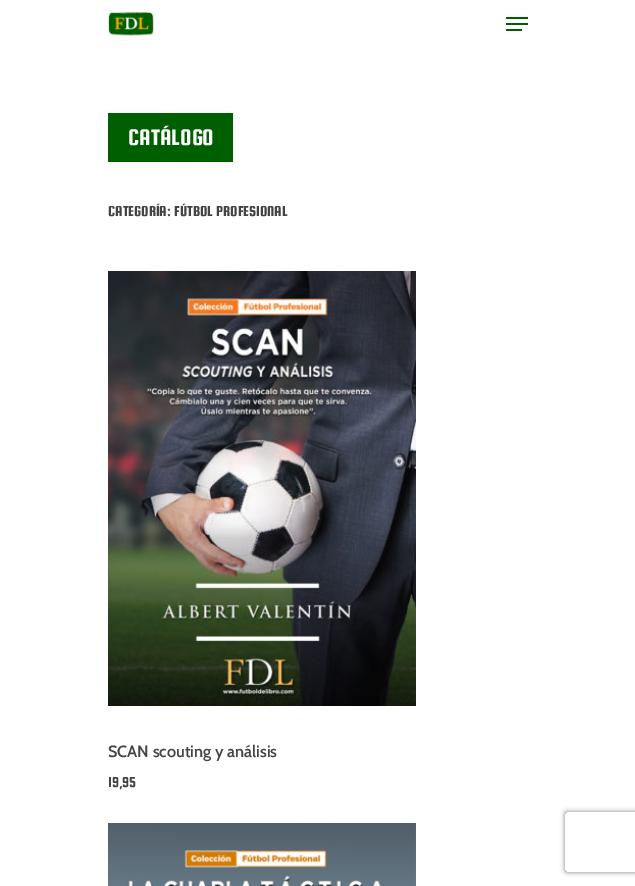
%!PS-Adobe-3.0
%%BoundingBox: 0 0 635 886
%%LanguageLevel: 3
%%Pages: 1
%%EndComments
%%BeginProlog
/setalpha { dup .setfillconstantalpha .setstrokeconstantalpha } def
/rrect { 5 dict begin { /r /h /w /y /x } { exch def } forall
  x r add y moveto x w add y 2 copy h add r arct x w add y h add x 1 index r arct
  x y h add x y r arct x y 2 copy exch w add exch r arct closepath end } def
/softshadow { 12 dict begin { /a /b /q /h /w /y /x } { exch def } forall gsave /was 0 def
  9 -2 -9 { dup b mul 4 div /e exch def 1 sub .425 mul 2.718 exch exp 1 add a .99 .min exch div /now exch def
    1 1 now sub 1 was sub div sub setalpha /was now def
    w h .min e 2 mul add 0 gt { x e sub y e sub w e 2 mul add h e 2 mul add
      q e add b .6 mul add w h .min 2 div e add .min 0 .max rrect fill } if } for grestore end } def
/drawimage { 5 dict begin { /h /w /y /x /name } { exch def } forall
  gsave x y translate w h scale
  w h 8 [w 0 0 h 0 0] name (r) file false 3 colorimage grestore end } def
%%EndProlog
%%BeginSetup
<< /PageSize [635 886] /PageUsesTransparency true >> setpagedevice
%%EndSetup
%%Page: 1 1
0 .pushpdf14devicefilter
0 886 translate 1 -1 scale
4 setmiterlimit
1 setgray
0 0 635 886 rectfill
(images/1.raw) 108 12 46 24 drawimage
0 0.373 0.004 setrgbcolor
506 17 22 2 rectfill
506 29 16 2 rectfill
506 23 22 2 rectfill
108 113 125 49 rectfill
(images/2.raw) 108 271 308 435 drawimage
(images/3.raw) 108 823 308 63 drawimage
gsave
newpath 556 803 moveto 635 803 lineto 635 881 lineto 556 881 lineto closepath 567 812 moveto 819 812 lineto 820 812 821 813 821 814 curveto 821 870 lineto 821 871 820 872 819 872 curveto 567 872 lineto 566 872 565 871 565 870 curveto 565 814 lineto 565 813 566 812 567 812 curveto closepath eoclip newpath
0.502 setgray
565 812 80 60 2 2.5 1 softshadow
grestore
/SquadaOne-Regular [24 0 0 -24 0 0] selectfont
1 setgray
128 145 moveto (CATÁLOGO) show
/SquadaOne-Regular [15.4 0 0 -15.4 0 0] selectfont
0.267 setgray
108 216 moveto (CATEGORÍA: FÚTBOL PROFESIONAL) show
/Cabin-SemiBold [16.25 0 0 -16.25 0 0] selectfont
108 757 moveto (SCAN scouting y análisis) show
/SquadaOne-Regular [15.4 0 0 -15.4 0 0] selectfont
108 787 moveto (19,95) show
.poppdf14devicefilter showpage
%%EOF
